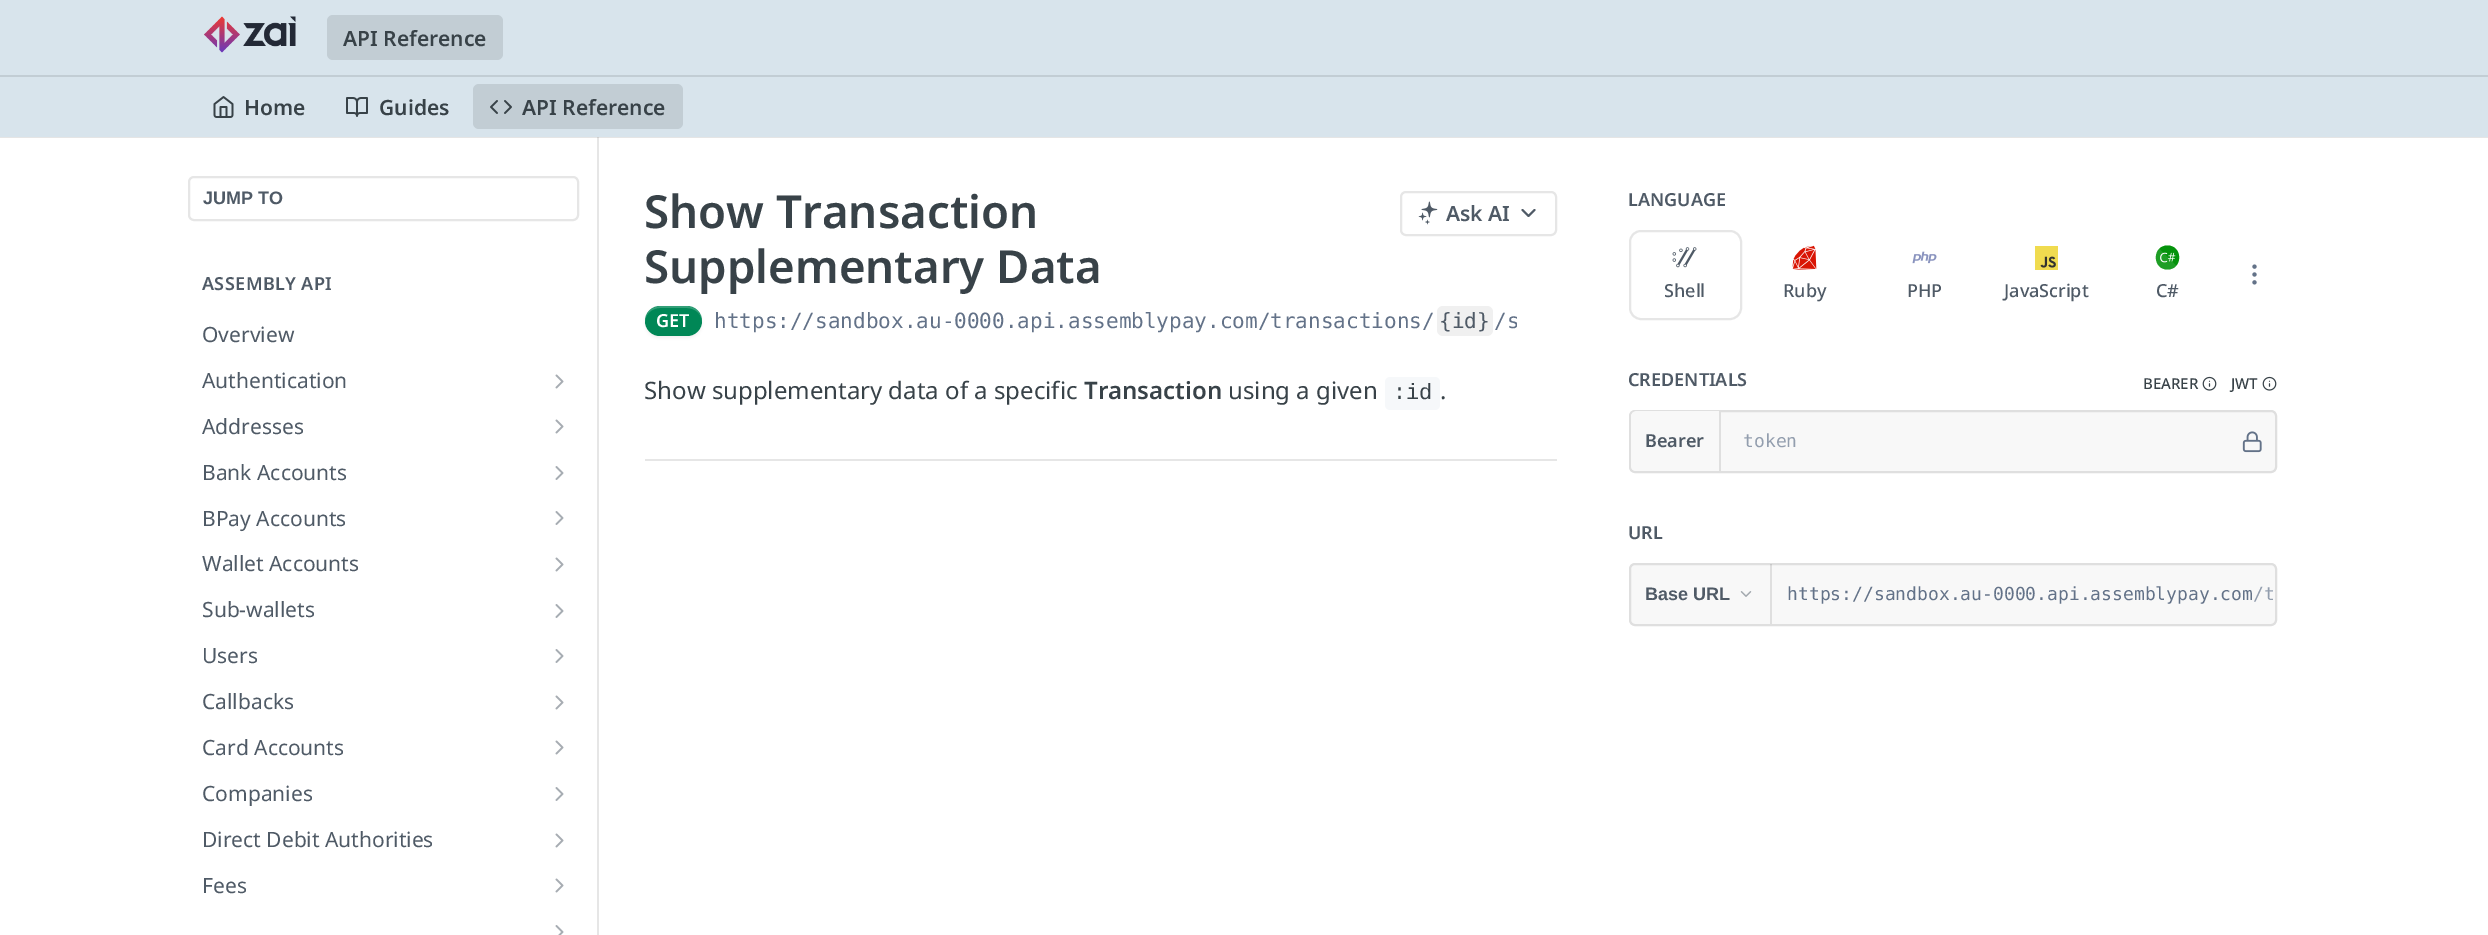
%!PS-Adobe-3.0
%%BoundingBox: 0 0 2488 935
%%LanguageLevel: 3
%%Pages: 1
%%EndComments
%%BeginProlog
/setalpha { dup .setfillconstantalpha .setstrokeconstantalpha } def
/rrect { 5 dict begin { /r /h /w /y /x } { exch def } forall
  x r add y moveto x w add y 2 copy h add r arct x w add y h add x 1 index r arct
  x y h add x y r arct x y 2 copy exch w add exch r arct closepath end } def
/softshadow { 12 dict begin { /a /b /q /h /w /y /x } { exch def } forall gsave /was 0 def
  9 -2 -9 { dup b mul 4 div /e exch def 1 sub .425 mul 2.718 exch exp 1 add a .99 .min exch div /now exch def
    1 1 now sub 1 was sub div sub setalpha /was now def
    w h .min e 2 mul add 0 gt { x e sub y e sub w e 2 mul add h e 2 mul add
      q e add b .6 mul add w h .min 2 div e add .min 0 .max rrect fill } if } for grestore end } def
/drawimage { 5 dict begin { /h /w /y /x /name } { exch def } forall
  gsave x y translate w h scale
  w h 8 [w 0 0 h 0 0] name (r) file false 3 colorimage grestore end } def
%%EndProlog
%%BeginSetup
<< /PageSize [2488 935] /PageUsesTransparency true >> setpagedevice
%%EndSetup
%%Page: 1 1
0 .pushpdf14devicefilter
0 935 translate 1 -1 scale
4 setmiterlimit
1 setgray
0 0 2488 935 rectfill
0.902 setgray
newpath 167 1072 moveto 167 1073 lineto 599 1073 lineto 599 137 lineto 597 137 lineto 597 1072 lineto closepath fill
0.1 setalpha
0 setgray
newpath 0 136 moveto 0 138 lineto 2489 138 lineto 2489 2 lineto 2488 2 lineto 2488 136 lineto closepath fill
1 setalpha
0.847 0.894 0.925 setrgbcolor
0 0 2488 137 rectfill
0.761 0.804 0.831 setrgbcolor
0 75 2488 2 rectfill
(images/1.raw) 204 16 92 37 drawimage
327 15 176 45 6 rrect fill
(images/2.raw) 213 96 21 22 drawimage
(images/3.raw) 346 97 22 20 drawimage
473 84 210 45 6 rrect fill
(images/4.raw) 490 100 22 14 drawimage
0.902 setgray
2 setlinewidth
189 177 389 43 5 rrect stroke
(images/5.raw) 555 374 9 15 drawimage
(images/5.raw) 555 419 9 15 drawimage
(images/6.raw) 555 466 9 14 drawimage
(images/6.raw) 555 511 9 14 drawimage
(images/5.raw) 555 557 9 15 drawimage
(images/6.raw) 555 604 9 14 drawimage
(images/6.raw) 555 649 9 14 drawimage
(images/5.raw) 555 695 9 15 drawimage
(images/5.raw) 555 740 9 15 drawimage
(images/6.raw) 555 787 9 14 drawimage
(images/5.raw) 555 833 9 15 drawimage
(images/5.raw) 555 878 9 15 drawimage
(images/7.raw) 555 925 9 10 drawimage
645 459 912 2 rectfill
1401 192 155 43 5 rrect stroke
(images/8.raw) 1418 201 20 24 drawimage
0.31 0.353 0.4 setrgbcolor
1 setlinecap
1 setlinejoin
newpath 1522.5 210 moveto 1528.5 216 lineto 1534.5 210 lineto stroke
0 setgray
645 308 57 30 15 1.5 0.05 softshadow
0 0.529 0.337 setrgbcolor
645 306 57 30 15 rrect fill
0.2 setalpha
1 setgray
newpath 660 308 moveto 687 308 lineto 695 308 702 314 702 322 curveto 702 318 701 315 699 313 curveto 694 304 682 306 674 306 curveto 665 306 653 304 648 313 curveto 646 315 645 318 645 322 curveto 645 314 652 308 660 308 curveto closepath fill
1 setalpha
0.941 setgray
1437 306 56 30 6 rrect fill
0.965 0.973 0.98 setrgbcolor
1385 377 55 33 5 rrect fill
(images/9.raw) 2252 264 5 21 drawimage
0.902 setgray
0 setlinecap
0 setlinejoin
1630 231 111 88 11 rrect stroke
(images/10.raw) 1672 247 25 21 drawimage
(images/11.raw) 1792 245 25 25 drawimage
(images/12.raw) 1912 251 25 13 drawimage
0.941 0.859 0.31 setrgbcolor
2035 246 23 24 rectfill
(images/13.raw) 2040 256 16 12 drawimage
0.02 0.576 0.047 setrgbcolor
newpath 2167.5 269.5 moveto 2183 269.5 2183 245.5 2167.5 245.5 curveto 2152 245.5 2152 269.5 2167.5 269.5 curveto closepath fill
(images/14.raw) 2160 252 8 11 drawimage
(images/15.raw) 2168 252 8 10 drawimage
0.1 setalpha
1 setgray
newpath 2159.5 249 moveto 2150.5 257 2158 272 2170 269.5 curveto 2172 269 2174.5 267.5 2176 265.5 curveto closepath fill
1 setalpha
(images/16.raw) 2202 376 15 15 drawimage
(images/16.raw) 2262 376 15 15 drawimage
0.973 setgray
1630 411 646 61 5 rrect gsave fill grestore
0.875 setgray
stroke
0.973 setgray
newpath 1637 411 moveto 1721 411 lineto 1721 471 lineto 1637 471 lineto 1633.5 471 1631 468.5 1631 465 curveto 1631 417 lineto 1631 413.5 1633.5 411 1637 411 curveto closepath fill
0.875 setgray
1719 411 2 60 rectfill
(images/17.raw) 2242 431 20 22 drawimage
0.973 setgray
1630 564 646 61 5 rrect gsave fill grestore
0.875 setgray
stroke
0.1 setalpha
0 setgray
1770 564 2 60 rectfill
1 setalpha
(images/18.raw) 1740 591 12 6 drawimage
/NotoSans-SemiBold [21 0 0 -21 0 0] selectfont
0.22 0.259 0.282 setrgbcolor
343 46 moveto (API Reference) show
244 115 moveto (Home) show
379 115 moveto (Guides) show
522 115 moveto (API Reference) show
/LiberationSans-Bold [18 0 0 -18 0 0] selectfont
0.31 0.353 0.4 setrgbcolor
203 204 moveto (JUMP TO) show
/NotoSans-SemiBold [18 0 0 -18 0 0] selectfont
202 290 moveto 0.4 0 (ASSEMBLY API) ashow
/NotoSans-Regular [21 0 0 -21 0 0] selectfont
202 342 moveto (Overview) show
202 388 moveto (Authentication) show
202 434 moveto (Addresses) show
202 480 moveto (Bank Accounts) show
202 526 moveto (BPay Accounts) show
202 571 moveto (Wallet Accounts) show
202 617 moveto (Sub-wallets) show
202 663 moveto (Users) show
202 709 moveto (Callbacks) show
202 755 moveto (Card Accounts) show
202 801 moveto (Companies) show
202 847 moveto (Direct Debit Authorities) show
202 893 moveto (Fees) show
/NotoSans-SemiBold [45.6 0 0 -45.6 0 0] selectfont
0.22 0.259 0.282 setrgbcolor
644 228 moveto (Show Transaction) show
644 283 moveto (Supplementary Data) show
/NotoSans-SemiBold [21 0 0 -21 0 0] selectfont
0.31 0.353 0.4 setrgbcolor
1446 221 moveto (Ask AI) show
/NotoSans-SemiBold [18 0 0 -18 0 0] selectfont
1 setgray
656 327 moveto (GET) show
/DejaVuSansMono-Regular [21 0 0 -21 0 0] selectfont
0.388 0.447 0.533 setrgbcolor
714 328 moveto (https://sandbox.au-0000.api.assemblypay.com/transactions/) show
0.31 0.353 0.4 setrgbcolor
1439 328 moveto ({id}) show
gsave
714 306 803 30 rectclip
0.388 0.447 0.533 setrgbcolor
1494 328 moveto (/s) show
grestore
/NotoSans-Regular [24 0 0 -24 0 0] selectfont
0.22 0.259 0.282 setrgbcolor
644 399 moveto (Show supplementary data of a specific) show
/NotoSans-SemiBold [24 0 0 -24 0 0] selectfont
1084 399 moveto (Transaction) show
/NotoSans-Regular [24 0 0 -24 0 0] selectfont
1228 399 moveto (using a given) show
/LiberationMono-Regular [22 0 0 -22 0 0] selectfont
1393 399 moveto (:id) show
/NotoSans-Regular [24 0 0 -24 0 0] selectfont
1440 399 moveto (.) show
/NotoSans-SemiBold [18 0 0 -18 0 0] selectfont
0.31 0.353 0.4 setrgbcolor
1628 206 moveto (LANGUAGE) show
/NotoSans-Medium [18 0 0 -18 0 0] selectfont
1664 297 moveto (Shell) show
1783 297 moveto (Ruby) show
1907 297 moveto (PHP) show
2004 297 moveto (JavaScript) show
2156 297 moveto (C#) show
/NotoSans-SemiBold [18 0 0 -18 0 0] selectfont
1628 386 moveto (CREDENTIALS) show
/NotoSans-Medium [15 0 0 -15 0 0] selectfont
0.22 0.259 0.282 setrgbcolor
2143 389 moveto (BEARER) show
2231 389 moveto (JWT) show
/NotoSans-SemiBold [18 0 0 -18 0 0] selectfont
0.31 0.353 0.4 setrgbcolor
1645 447 moveto (Bearer) show
/DejaVuSansMono-Regular [18 0 0 -18 0 0] selectfont
0.576 0.62 0.682 setrgbcolor
1743 447 moveto (token) show
/NotoSans-SemiBold [18 0 0 -18 0 0] selectfont
0.31 0.353 0.4 setrgbcolor
1628 539 moveto (URL) show
/LiberationSans-Bold [18 0 0 -18 0 0] selectfont
1645 600 moveto (Base URL) show
/DejaVuSansMono-Regular [18 0 0 -18 0 0] selectfont
0.388 0.447 0.533 setrgbcolor
1787 600 moveto (https://sandbox.au-0000.api.assemblypay.com) show
0.576 0.62 0.682 setrgbcolor
2253 600 moveto (/t) show
.poppdf14devicefilter showpage
%%EOF
